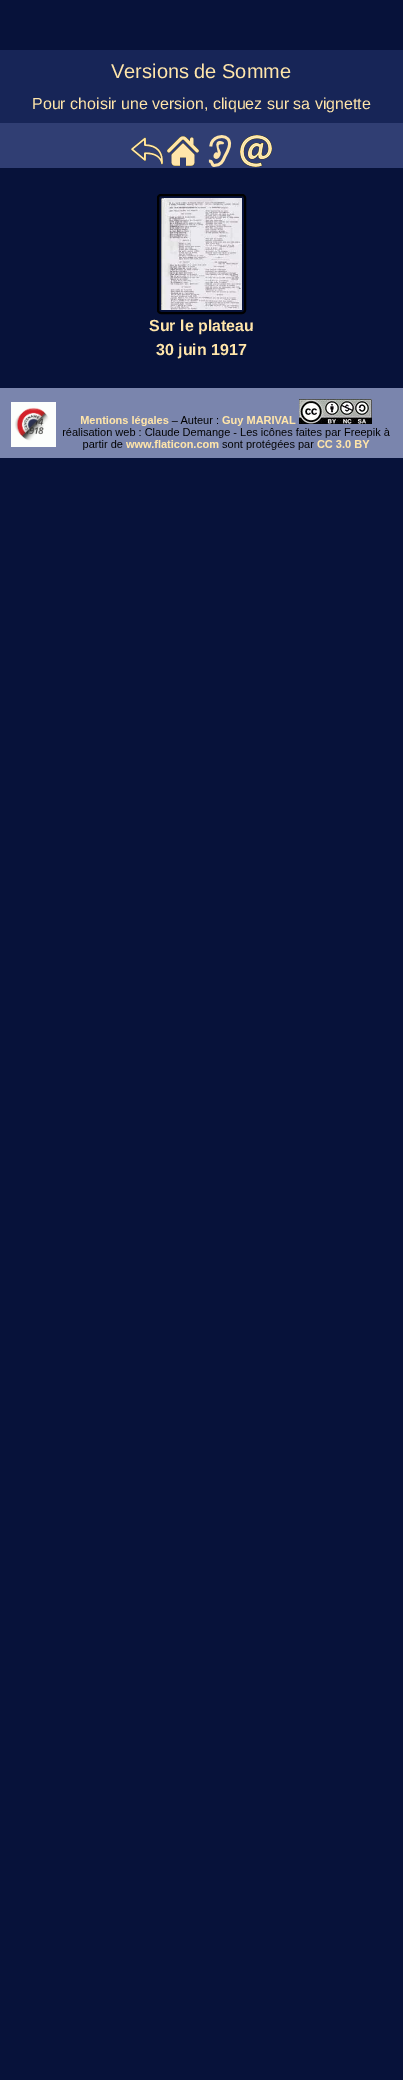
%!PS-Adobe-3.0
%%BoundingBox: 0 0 403 2080
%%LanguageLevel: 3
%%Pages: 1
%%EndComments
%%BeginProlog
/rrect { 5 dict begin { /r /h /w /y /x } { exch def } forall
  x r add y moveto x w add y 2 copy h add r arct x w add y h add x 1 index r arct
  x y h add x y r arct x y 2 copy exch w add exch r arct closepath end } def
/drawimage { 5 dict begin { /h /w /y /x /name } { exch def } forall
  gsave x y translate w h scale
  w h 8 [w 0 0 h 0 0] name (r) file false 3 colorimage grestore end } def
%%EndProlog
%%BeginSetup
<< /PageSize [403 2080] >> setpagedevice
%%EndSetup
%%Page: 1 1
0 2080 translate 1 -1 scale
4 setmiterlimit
0.027 0.071 0.227 setrgbcolor
0 0 403 2080 rectfill
0.09 0.145 0.341 setrgbcolor
0 50 403 73 rectfill
0.188 0.243 0.451 setrgbcolor
0 123 403 45 rectfill
(images/1.raw) 131 137 32 28 drawimage
(images/2.raw) 167 136 32 30 drawimage
(images/3.raw) 208 135 24 32 drawimage
(images/4.raw) 240 135 32 32 drawimage
0 setgray
2 setlinewidth
158 195 87 118 3 rrect stroke
(images/5.raw) 161 198 81 112 drawimage
0.478 0.522 0.678 setrgbcolor
0 388 403 70 rectfill
(images/6.raw) 11 399 379 51 drawimage
/LiberationSans-Regular [20 0 0 -20 0 0] selectfont
1 0.898 0.667 setrgbcolor
111 78 moveto (Versions de Somme) show
/LiberationSans-Regular [16 0 0 -16 0 0] selectfont
32 109 moveto (Pour choisir une version, cliquez sur sa vignette) show
/LiberationSans-Bold [16 0 0 -16 0 0] selectfont
149 331 moveto (Sur le plateau) show
156 355 moveto (30 juin 1917) show
showpage
%%EOF
